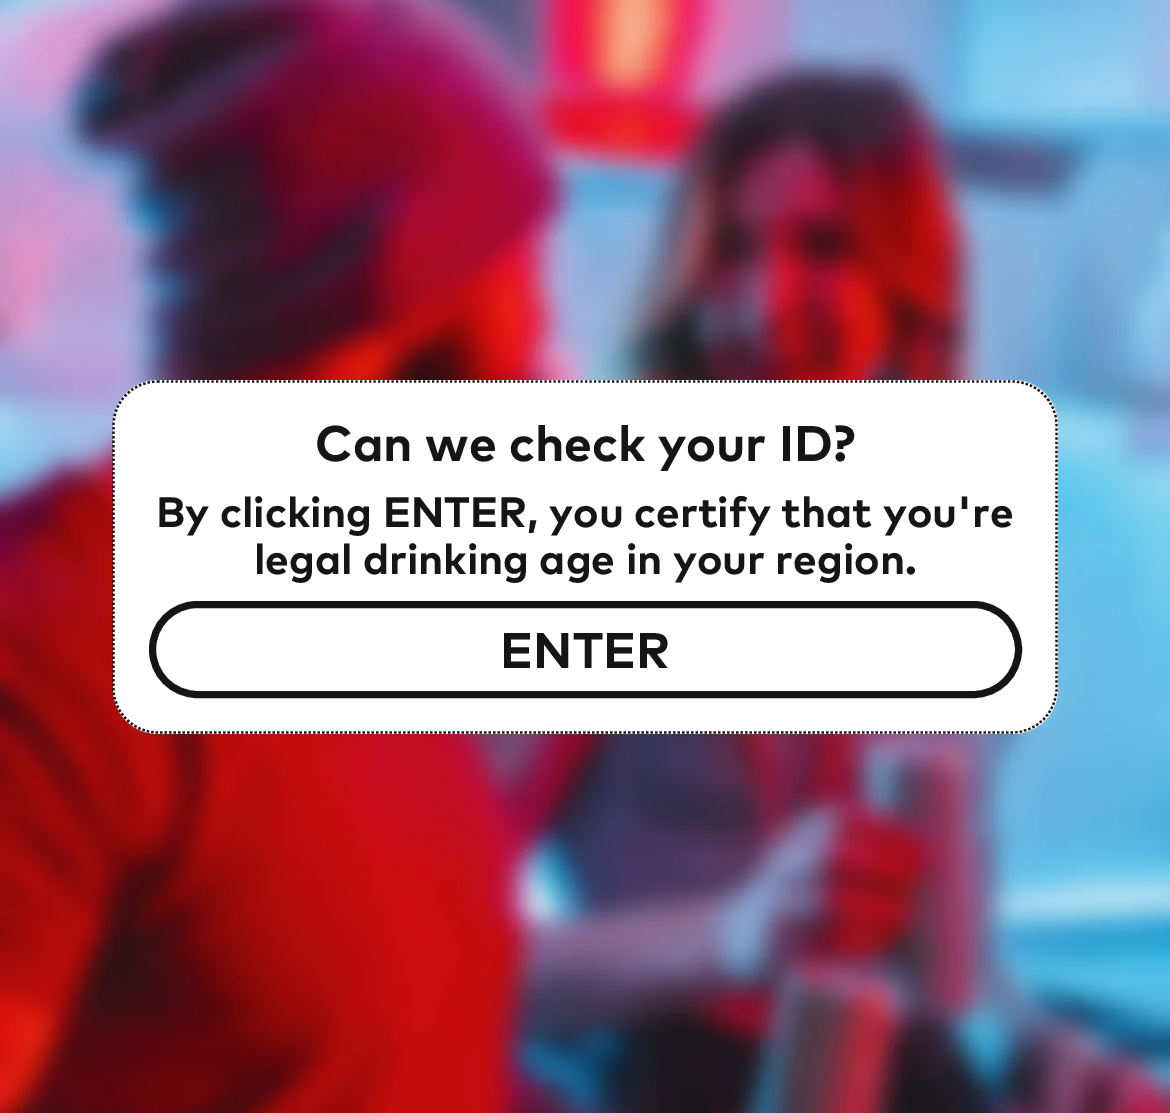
%!PS-Adobe-3.0
%%BoundingBox: 0 0 1170 1113
%%LanguageLevel: 3
%%Pages: 1
%%EndComments
%%BeginProlog
/rrect { 5 dict begin { /r /h /w /y /x } { exch def } forall
  x r add y moveto x w add y 2 copy h add r arct x w add y h add x 1 index r arct
  x y h add x y r arct x y 2 copy exch w add exch r arct closepath end } def
/drawimage { 5 dict begin { /h /w /y /x /name } { exch def } forall
  gsave x y translate w h scale
  w h 8 [w 0 0 h 0 0] name (r) file false 3 colorimage grestore end } def
%%EndProlog
%%BeginSetup
<< /PageSize [1170 1113] >> setpagedevice
%%EndSetup
%%Page: 1 1
0 1113 translate 1 -1 scale
4 setmiterlimit
1 setgray
0 0 1170 1113 rectfill
(images/1.raw) 0 0 1170 1113 drawimage
113 380 945 354 45 rrect fill
0.082 setgray
2.2 setlinewidth
[2.25 2.25] 0 setdash
newpath 157.5 381.5 moveto 1012.5 381.5 lineto 1036.5 381.5 1056.5 401 1056.5 425 curveto 1056.5 688.5 lineto 1056.5 712.5 1036.5 732.5 1012.5 732.5 curveto 157.5 732.5 lineto 133.5 732.5 113.5 712.5 113.5 688.5 curveto 113.5 425 lineto 113.5 401 133.5 381.5 157.5 381.5 curveto closepath stroke
7 setlinewidth
[] 0 setdash
152.5 604.5 866 90 45 rrect stroke
/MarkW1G-Bold [50 0 0 -50 0 0] selectfont
315 461 moveto (Can we check your ID?) show
/MarkW1G-Bold [42.5 0 0 -42.5 0 0] selectfont
156 527 moveto (By clicking ENTER, you certify that you're) show
254 574 moveto (legal drinking age in your region.) show
/MarkW1G-Bold [50 0 0 -50 0 0] selectfont
500 668 moveto (ENTER) show
showpage
%%EOF
